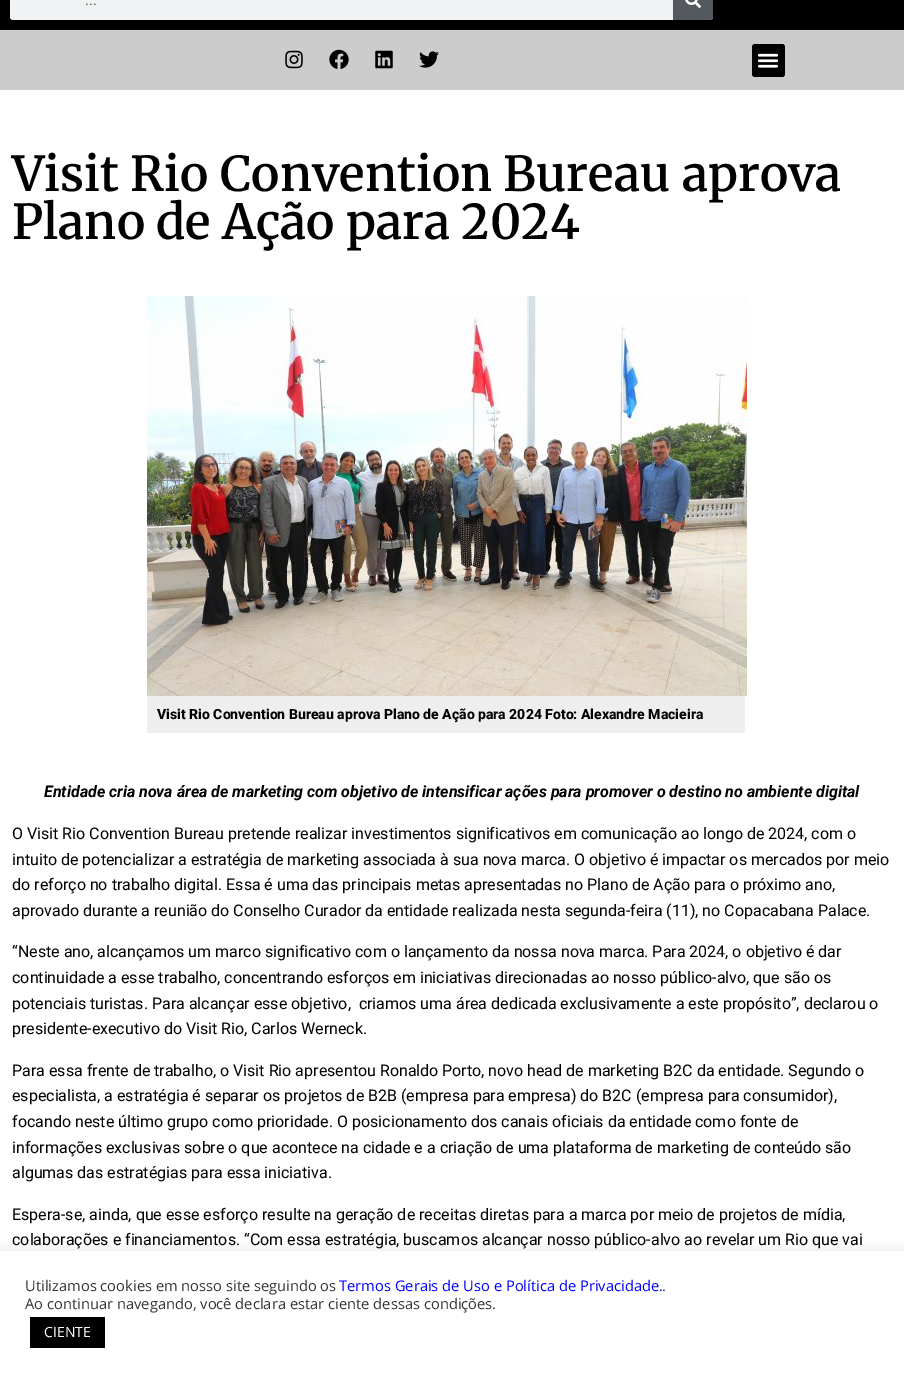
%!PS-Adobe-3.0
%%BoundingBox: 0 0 904 1373
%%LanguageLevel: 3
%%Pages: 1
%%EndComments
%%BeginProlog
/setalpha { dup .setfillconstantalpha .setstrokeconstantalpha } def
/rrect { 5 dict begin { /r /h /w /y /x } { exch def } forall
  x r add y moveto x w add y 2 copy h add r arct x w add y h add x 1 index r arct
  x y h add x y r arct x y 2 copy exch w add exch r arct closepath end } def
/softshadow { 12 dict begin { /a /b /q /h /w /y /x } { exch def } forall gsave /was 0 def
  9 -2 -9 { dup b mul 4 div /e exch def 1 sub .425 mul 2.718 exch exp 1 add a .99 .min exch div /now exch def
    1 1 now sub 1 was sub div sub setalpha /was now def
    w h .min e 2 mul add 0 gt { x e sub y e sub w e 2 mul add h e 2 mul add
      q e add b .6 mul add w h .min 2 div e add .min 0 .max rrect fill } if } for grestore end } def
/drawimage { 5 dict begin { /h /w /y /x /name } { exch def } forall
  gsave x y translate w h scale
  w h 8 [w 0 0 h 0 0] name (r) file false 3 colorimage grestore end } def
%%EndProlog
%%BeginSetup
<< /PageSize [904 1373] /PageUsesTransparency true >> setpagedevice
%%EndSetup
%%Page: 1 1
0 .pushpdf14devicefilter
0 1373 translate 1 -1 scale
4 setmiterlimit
1 setgray
0 0 904 1373 rectfill
0 setgray
0 0 904 30 rectfill
0.945 0.949 0.953 setrgbcolor
10 -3 703 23 3 rrect fill
0.329 0.349 0.373 setrgbcolor
newpath 673 -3 moveto 710 -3 lineto 711.5 -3 713 -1.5 713 0 curveto 713 17 lineto 713 18.5 711.5 20 710 20 curveto 673 20 lineto closepath fill
(images/1.raw) 685 0 16 8 drawimage
0.8 setgray
0 30 904 60 rectfill
(images/2.raw) 285 50 18 19 drawimage
(images/3.raw) 329 49 20 20 drawimage
(images/4.raw) 375 50 18 19 drawimage
(images/5.raw) 419 51 20 17 drawimage
0 setgray
752 44 33 33 3 rrect fill
(images/6.raw) 757 53 22 15 drawimage
(images/7.raw) 147 296 600 400 drawimage
0.933 setgray
147 696 598 37 rectfill
0.675 0.671 0.671 setrgbcolor
0 1250 904 122 0 5 0.3 softshadow
1 setgray
0 1251 904 122 rectfill
0 setgray
30 1317 75 31 rectfill
/Roboto-Regular [15 0 0 -15 0 0] selectfont
0.376 0.38 0.38 setrgbcolor
85 5 moveto (...) show
/Merriweather-SemiBold [48 0 0 -48 0 0] selectfont
0 setgray
12 191 moveto (Visit Rio Convention Bureau aprova) show
12 239 moveto (Plano de Ação para 2024) show
/Roboto-ExtraBold [14 0 0 -14 0 0] selectfont
157 719 moveto (Visit Rio Convention Bureau aprova Plano de Ação para 2024 Foto: Alexandre Macieira) show
/Roboto-BoldItalic [16 0 0 -16 0 0] selectfont
44 797 moveto (Entidade cria nova área de marketing com objetivo de intensificar ações para promover o destino no ambiente digital) show
/Roboto-Regular [16 0 0 -16 0 0] selectfont
12 839 moveto (O Visit Rio Convention Bureau pretende realizar investimentos significativos em comunicação ao longo de 2024, com o) show
12 865 moveto (intuito de potencializar a estratégia de marketing associada à sua nova marca. O objetivo é impactar os mercados por meio) show
12 890 moveto (do reforço no trabalho digital. Essa é uma das principais metas apresentadas no Plano de Ação para o próximo ano,) show
12 916 moveto (aprovado durante a reunião do Conselho Curador da entidade realizada nesta segunda-feira \(11\), no Copacabana Palace.) show
12 957 moveto (“Neste ano, alcançamos um marco significativo com o lançamento da nossa nova marca. Para 2024, o objetivo é dar) show
12 983 moveto (continuidade a esse trabalho, concentrando esforços em iniciativas direcionadas ao nosso público-alvo, que são os) show
12 1009 moveto (potenciais turistas. Para alcançar esse objetivo,  criamos uma área dedicada exclusivamente a este propósito”, declarou o) show
12 1034 moveto (presidente-executivo do Visit Rio, Carlos Werneck.) show
12 1076 moveto (Para essa frente de trabalho, o Visit Rio apresentou Ronaldo Porto, novo head de marketing B2C da entidade. Segundo o) show
12 1101 moveto (especialista, a estratégia é separar os projetos de B2B \(empresa para empresa\) do B2C \(empresa para consumidor\),) show
12 1127 moveto (focando neste último grupo como prioridade. O posicionamento dos canais oficiais da entidade como fonte de) show
12 1153 moveto (informações exclusivas sobre o que acontece na cidade e a criação de uma plataforma de marketing de conteúdo são) show
12 1178 moveto (algumas das estratégias para essa iniciativa.) show
12 1220 moveto (Espera-se, ainda, que esse esforço resulte na geração de receitas diretas para a marca por meio de projetos de mídia,) show
12 1245 moveto (colaborações e financiamentos. “Com essa estratégia, buscamos alcançar nosso público-alvo ao revelar um Rio que vai) show
/OpenSans-Regular [14.7 0 0 -14.7 0 0] selectfont
0.2 setgray
25 1291 moveto (Utilizamos cookies em nosso site seguindo os) show
0 0 1 setrgbcolor
339 1291 moveto (Termos Gerais de Uso e Política de Privacidade.) show
0.2 setgray
662 1291 moveto (.) show
25 1309 moveto (Ao continuar navegando, você declara estar ciente dessas condições.) show
/OpenSans-Regular [14 0 0 -14 0 0] selectfont
1 setgray
44 1337 moveto (CIENTE) show
.poppdf14devicefilter showpage
%%EOF
